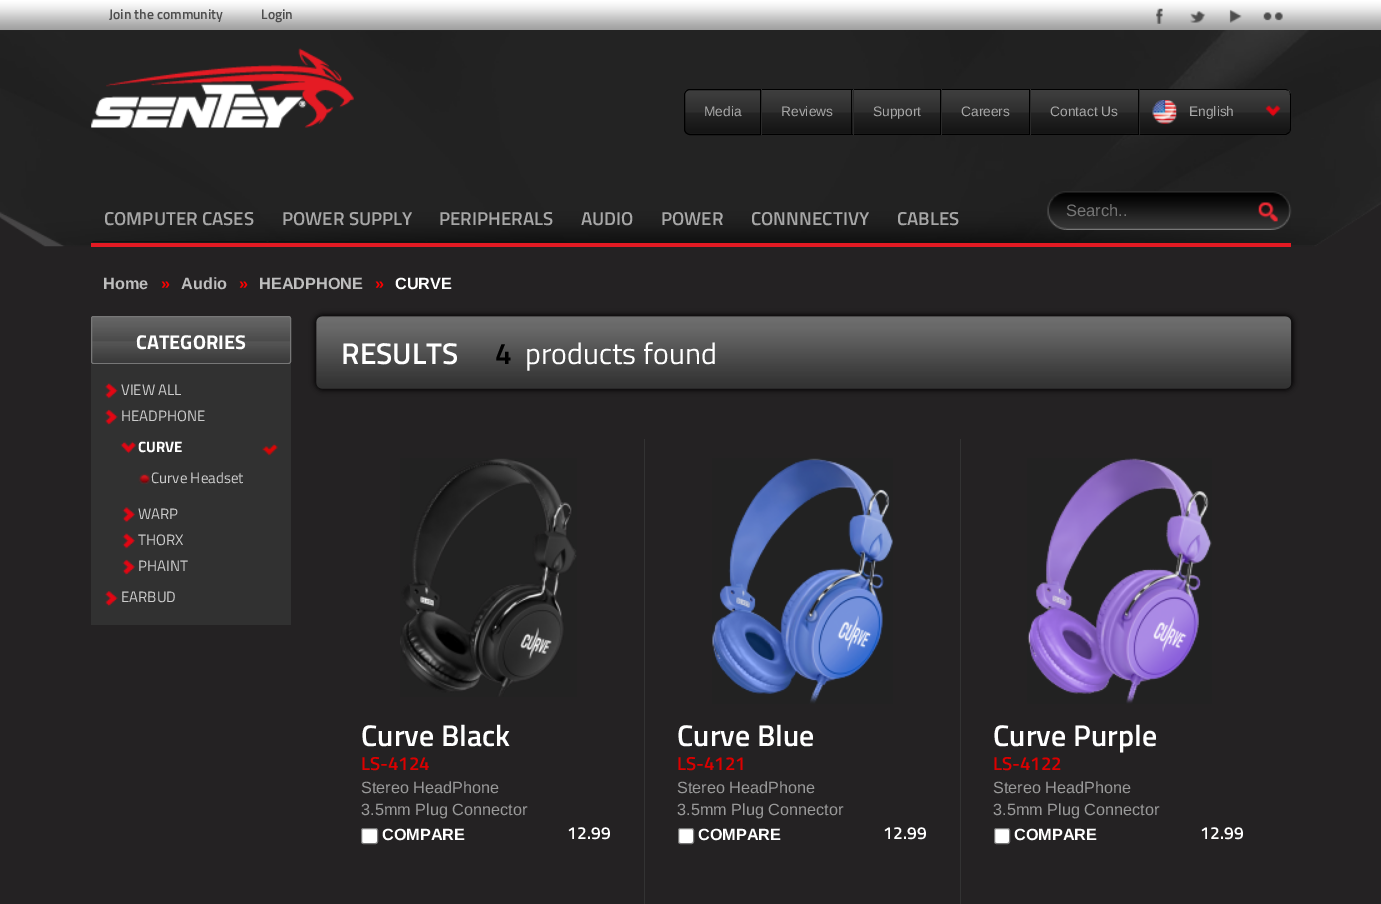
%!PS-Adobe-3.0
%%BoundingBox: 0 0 1381 904
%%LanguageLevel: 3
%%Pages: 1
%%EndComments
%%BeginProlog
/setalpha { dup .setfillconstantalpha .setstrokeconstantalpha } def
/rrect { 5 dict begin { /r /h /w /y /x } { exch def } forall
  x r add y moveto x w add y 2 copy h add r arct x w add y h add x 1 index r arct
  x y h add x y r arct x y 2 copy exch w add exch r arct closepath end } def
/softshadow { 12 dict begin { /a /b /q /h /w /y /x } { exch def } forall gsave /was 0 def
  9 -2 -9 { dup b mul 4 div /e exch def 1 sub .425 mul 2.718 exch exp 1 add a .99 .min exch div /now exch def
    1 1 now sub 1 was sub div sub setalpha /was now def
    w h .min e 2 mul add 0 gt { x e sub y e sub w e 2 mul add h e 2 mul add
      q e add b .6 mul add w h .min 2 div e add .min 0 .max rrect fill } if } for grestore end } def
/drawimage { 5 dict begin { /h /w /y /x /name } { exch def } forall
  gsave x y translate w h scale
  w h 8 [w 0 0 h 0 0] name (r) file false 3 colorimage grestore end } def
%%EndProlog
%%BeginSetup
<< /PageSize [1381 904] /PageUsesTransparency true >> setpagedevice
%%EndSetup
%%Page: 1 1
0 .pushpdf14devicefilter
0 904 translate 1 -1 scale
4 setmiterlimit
0.141 0.133 0.137 setrgbcolor
0 0 1381 904 rectfill
(images/1.raw) 0 0 1381 30 drawimage
(images/2.raw) 1156 8 7 16 drawimage
(images/3.raw) 1190 11 16 12 drawimage
(images/4.raw) 1229 9 13 14 drawimage
(images/5.raw) 1263 12 20 9 drawimage
(images/6.raw) 0 30 1381 217 drawimage
(images/7.raw) 91 48 263 80 drawimage
(images/8.raw) 684 90 76 44 drawimage
0 setgray
newpath 690 89.5 moveto 760.5 89.5 lineto 760.5 134.5 lineto 690 134.5 lineto 687 134.5 684.5 132 684.5 129 curveto 684.5 95 lineto 684.5 92 687 89.5 690 89.5 curveto closepath stroke
(images/9.raw) 762 90 91 44 drawimage
761 89 378 1 rectfill
851 89 1 46 rectfill
761 134 92 1 rectfill
0.165 setgray
761 89 1 46 rectfill
(images/10.raw) 852 90 88 44 drawimage
0 setgray
940 89 1 46 rectfill
853 134 88 1 rectfill
0.165 setgray
853 89 1 46 rectfill
(images/11.raw) 942 90 87 44 drawimage
0 setgray
1029 89 1 46 rectfill
941 134 89 1 rectfill
0.165 setgray
941 89 1 46 rectfill
(images/12.raw) 1031 90 107 44 drawimage
0 setgray
1138 89 1 46 rectfill
1030 134 109 1 rectfill
0.165 setgray
1030 89 1 46 rectfill
(images/13.raw) 1138 90 153 44 drawimage
0 setgray
newpath 1139 89 moveto 1140 90 lineto 1286 90 lineto 1289 91 lineto 1288 90 1286 89 1285 89 curveto closepath fill
newpath 1289 91 moveto 1290 92 1291 94 1291 95 curveto 1291 129 lineto 1291 130 1290 132 1289 133 curveto 1289 132 lineto 1290 132 1290 130 1290 129 curveto 1290 95 lineto 1290 94 1290 92 1289 91 curveto closepath fill
newpath 1139 135 moveto 1286 135 lineto 1289 133 lineto 1289 132 lineto 1286 134 lineto 1140 134 lineto closepath fill
0.165 setgray
newpath 1140 90 moveto 1139 89 lineto 1139 135 lineto 1140 134 lineto closepath fill
(images/14.raw) 1152 100 25 24 drawimage
(images/15.raw) 1265 105 16 12 drawimage
0.89 0.102 0.137 setrgbcolor
91 243 1200 4 rectfill
0.063 setgray
newpath 267 242 moveto 92 242 lineto 93 241 lineto 266 241 lineto closepath fill
newpath 426 242 moveto 268 242 lineto 269 241 lineto 425 241 lineto closepath fill
newpath 567 242 moveto 427 242 lineto 428 241 lineto 566 241 lineto closepath fill
newpath 972 242 moveto 971 241 lineto 884 241 lineto 883 242 lineto closepath fill
(images/16.raw) 1047 191 245 39 drawimage
(images/17.raw) 1258 202 20 20 drawimage
(images/18.raw) 91 316 200 48 drawimage
0.467 setgray
91.5 316.5 199 47 2 rrect stroke
0.192 setgray
91 364 200 261 rectfill
(images/19.raw) 105 383 13 16 drawimage
(images/20.raw) 105 409 13 16 drawimage
(images/21.raw) 120 441 16 13 drawimage
(images/22.raw) 262 443 16 13 drawimage
(images/23.raw) 138 473 12 11 drawimage
(images/24.raw) 122 507 13 16 drawimage
(images/25.raw) 122 533 13 16 drawimage
(images/26.raw) 122 559 13 16 drawimage
(images/27.raw) 105 591 13 16 drawimage
0 setgray
315 315 978 75 8 3 1 softshadow
(images/28.raw) 316 316 976 73 drawimage
0.2 setgray
644 439 1 465 rectfill
960 439 1 465 rectfill
(images/29.raw) 400 458 177 239 drawimage
1 setgray
361.5 828.5 16 15 2 rrect gsave fill grestore
0.463 setgray
stroke
(images/30.raw) 712 458 181 246 drawimage
1 setgray
678.5 828.5 15 15 2 rrect gsave fill grestore
0.463 setgray
stroke
(images/31.raw) 1027 458 185 246 drawimage
1 setgray
994.5 828.5 15 15 2 rrect gsave fill grestore
0.463 setgray
stroke
/TitilliumWeb-SemiBold [13.75 0 0 -13.75 0 0] selectfont
0.302 setgray
109 19 moveto (Join the community) show
261 19 moveto (Login) show
/LiberationSans-Regular [13.75 0 0 -13.75 0 0] selectfont
0.655 setgray
704 116 moveto (Media) show
781 116 moveto (Reviews) show
873 116 moveto (Support) show
961 116 moveto (Careers) show
1050 116 moveto (Contact Us) show
1189 116 moveto (English) show
/TitilliumWeb-SemiBold [18.75 0 0 -18.75 0 0] selectfont
104 225 moveto (COMPUTER CASES) show
282 225 moveto (POWER SUPPLY) show
439 225 moveto (PERIPHERALS) show
581 225 moveto (AUDIO) show
661 225 moveto (POWER) show
751 225 moveto (CONNNECTIVY) show
897 225 moveto (CABLES) show
/LiberationSans-Regular [16.5 0 0 -16.5 0 0] selectfont
0.459 setgray
1066 216 moveto (Search..) show
/LiberationSans-Bold [16.25 0 0 -16.25 0 0] selectfont
0.745 setgray
103 289 moveto (Home) show
1 0 0 setrgbcolor
161 289 moveto (») show
0.745 setgray
181 289 moveto (Audio) show
1 0 0 setrgbcolor
239 289 moveto (») show
0.745 setgray
259 289 moveto (HEADPHONE) show
1 0 0 setrgbcolor
375 289 moveto (») show
1 setgray
395 289 moveto (CURVE) show
/TitilliumWeb-Bold [20 0 0 -20 0 0] selectfont
136 349 moveto (CATEGORIES) show
/TitilliumWeb-Regular [15 0 0 -15 0 0] selectfont
0.8 setgray
121 395 moveto (VIEW ALL) show
121 421 moveto (HEADPHONE) show
/TitilliumWeb-Bold [15 0 0 -15 0 0] selectfont
1 setgray
138 452 moveto (CURVE) show
/TitilliumWeb-Regular [15 0 0 -15 0 0] selectfont
0.8 setgray
151 483 moveto (Curve Headset) show
138 519 moveto (WARP) show
138 545 moveto (THORX) show
138 571 moveto (PHAINT) show
121 602 moveto (EARBUD) show
/TitilliumWeb-SemiBold [30 0 0 -30 0 0] selectfont
1 setgray
341 364 moveto (RESULTS) show
0 setgray
495 364 moveto (4) show
/TitilliumWeb-Regular [30 0 0 -30 0 0] selectfont
1 setgray
525 364 moveto (products found) show
/TitilliumWeb-SemiBold [30 0 0 -30 0 0] selectfont
361 746 moveto (Curve Black) show
/TitilliumWeb-SemiBold [18.75 0 0 -18.75 0 0] selectfont
0.863 0 0 setrgbcolor
361 770 moveto (LS-4124) show
/LiberationSans-Regular [16.25 0 0 -16.25 0 0] selectfont
0.6 setgray
361 793 moveto (Stereo HeadPhone) show
361 815 moveto (3.5mm Plug Connector) show
/LiberationSans-Bold [16.25 0 0 -16.25 0 0] selectfont
1 setgray
382 840 moveto (COMPARE) show
/TitilliumWeb-SemiBold [17.5 0 0 -17.5 0 0] selectfont
567 839 moveto (12.99) show
/TitilliumWeb-SemiBold [30 0 0 -30 0 0] selectfont
677 746 moveto (Curve Blue) show
/TitilliumWeb-SemiBold [18.75 0 0 -18.75 0 0] selectfont
0.863 0 0 setrgbcolor
677 770 moveto (LS-4121) show
/LiberationSans-Regular [16.25 0 0 -16.25 0 0] selectfont
0.6 setgray
677 793 moveto (Stereo HeadPhone) show
677 815 moveto (3.5mm Plug Connector) show
/LiberationSans-Bold [16.25 0 0 -16.25 0 0] selectfont
1 setgray
698 840 moveto (COMPARE) show
/TitilliumWeb-SemiBold [17.5 0 0 -17.5 0 0] selectfont
883 839 moveto (12.99) show
/TitilliumWeb-SemiBold [30 0 0 -30 0 0] selectfont
993 746 moveto (Curve Purple) show
/TitilliumWeb-SemiBold [18.75 0 0 -18.75 0 0] selectfont
0.863 0 0 setrgbcolor
993 770 moveto (LS-4122) show
/LiberationSans-Regular [16.25 0 0 -16.25 0 0] selectfont
0.6 setgray
993 793 moveto (Stereo HeadPhone) show
993 815 moveto (3.5mm Plug Connector) show
/LiberationSans-Bold [16.25 0 0 -16.25 0 0] selectfont
1 setgray
1014 840 moveto (COMPARE) show
/TitilliumWeb-SemiBold [17.5 0 0 -17.5 0 0] selectfont
1200 839 moveto (12.99) show
.poppdf14devicefilter showpage
%%EOF
